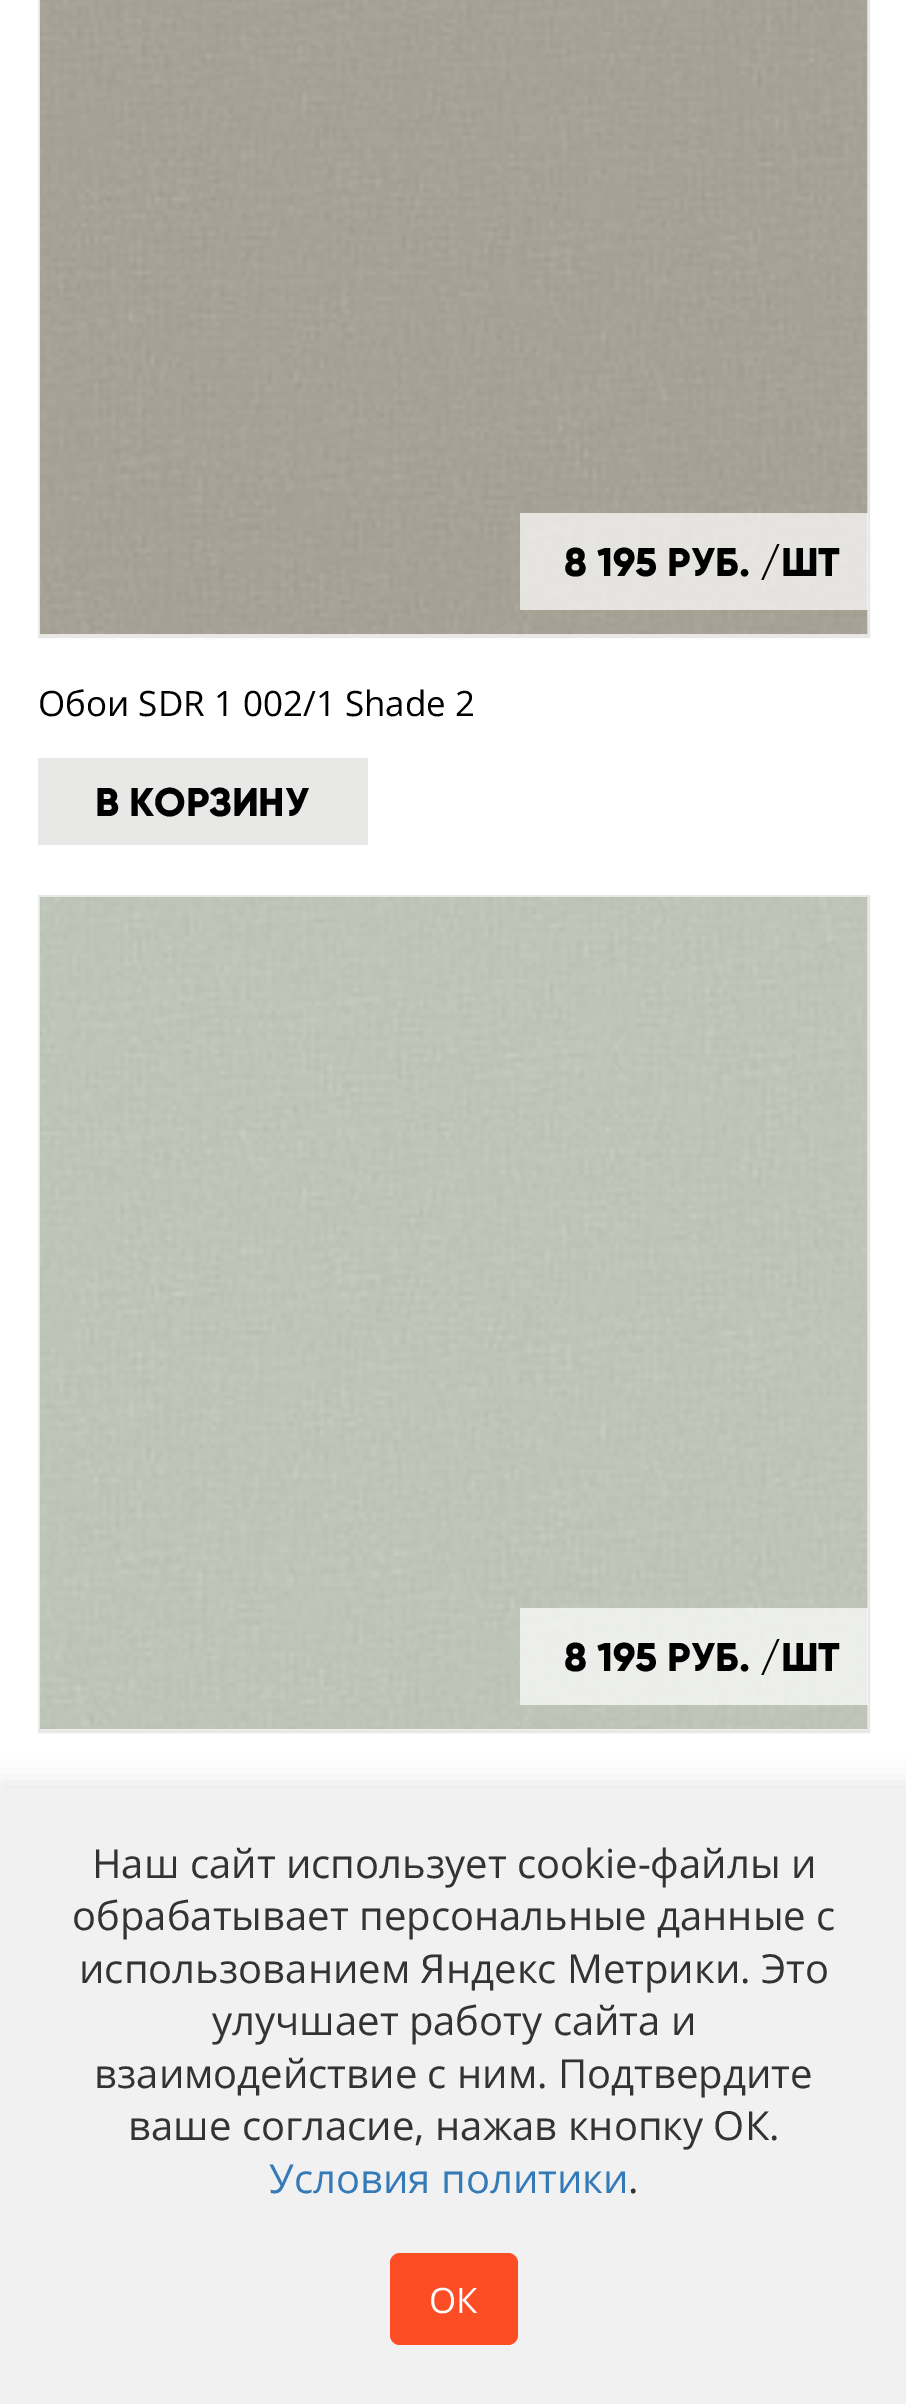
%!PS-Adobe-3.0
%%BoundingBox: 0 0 906 2404
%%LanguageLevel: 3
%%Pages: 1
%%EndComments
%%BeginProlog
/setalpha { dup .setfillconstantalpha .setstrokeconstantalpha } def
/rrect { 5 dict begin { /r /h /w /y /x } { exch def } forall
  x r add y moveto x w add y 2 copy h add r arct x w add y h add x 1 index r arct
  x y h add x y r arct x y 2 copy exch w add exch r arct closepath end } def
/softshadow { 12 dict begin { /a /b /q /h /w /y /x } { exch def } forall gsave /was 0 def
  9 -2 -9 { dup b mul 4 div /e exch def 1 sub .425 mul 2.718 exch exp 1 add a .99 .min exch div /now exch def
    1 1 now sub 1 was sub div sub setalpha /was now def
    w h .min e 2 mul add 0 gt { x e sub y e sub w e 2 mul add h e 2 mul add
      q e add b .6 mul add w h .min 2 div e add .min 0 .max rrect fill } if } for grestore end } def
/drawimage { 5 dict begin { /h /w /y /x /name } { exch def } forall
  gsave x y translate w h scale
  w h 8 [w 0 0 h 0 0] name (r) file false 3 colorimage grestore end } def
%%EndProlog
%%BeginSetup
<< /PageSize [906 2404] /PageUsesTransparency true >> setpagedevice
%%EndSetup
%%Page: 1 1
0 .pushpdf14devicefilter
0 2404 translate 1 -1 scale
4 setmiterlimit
1 setgray
0 0 906 2404 rectfill
0.91 0.91 0.906 setrgbcolor
3 setlinewidth
39.5 -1.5 829 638 rectstroke
(images/1.raw) 40 0 828 635 drawimage
0.71 setalpha
1 setgray
520 513 348 97 rectfill
1 setalpha
0.91 0.91 0.906 setrgbcolor
38 758 330 87 rectfill
39.5 896.5 829 835 rectstroke
(images/2.raw) 40 897 828 833 drawimage
0.71 setalpha
1 setgray
520 1608 348 97 rectfill
1 setalpha
0 setgray
0 1783 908 617 0 12.5 0.1 softshadow
0.945 setgray
0 1788 906 616 rectfill
0.992 0.302 0.145 setrgbcolor
390 2253 128 92 10 rrect fill
/Gilroy-ExtraBold [40 0 0 -40 0 0] selectfont
0 setgray
564 576 moveto (8 195 РУБ. /ШТ) show
/OpenSans-Regular [35 0 0 -35 0 0] selectfont
38 716 moveto (Обои SDR 1 002/1 Shade 2) show
/Gilroy-ExtraBold [40 0 0 -40 0 0] selectfont
95 816 moveto (В КОРЗИНУ) show
564 1671 moveto (8 195 РУБ. /ШТ) show
/OpenSans-Regular [40 0 0 -40 0 0] selectfont
0.2 setgray
92 1878 moveto (Наш сайт использует cookie-файлы и) show
72 1930 moveto (обрабатывает персональные данные с) show
79 1983 moveto (использованием Яндекс Метрики. Это) show
212 2035 moveto (улучшает работу сайта и) show
94 2088 moveto (взаимодействие с ним. Подтвердите) show
128 2140 moveto (ваше согласие, нажав кнопку ОК.) show
0.2 0.478 0.718 setrgbcolor
269 2193 moveto (Условия политики) show
0.2 setgray
628 2193 moveto (.) show
/OpenSans-Regular [35 0 0 -35 0 0] selectfont
1 setgray
429 2313 moveto (ОК) show
.poppdf14devicefilter showpage
%%EOF
